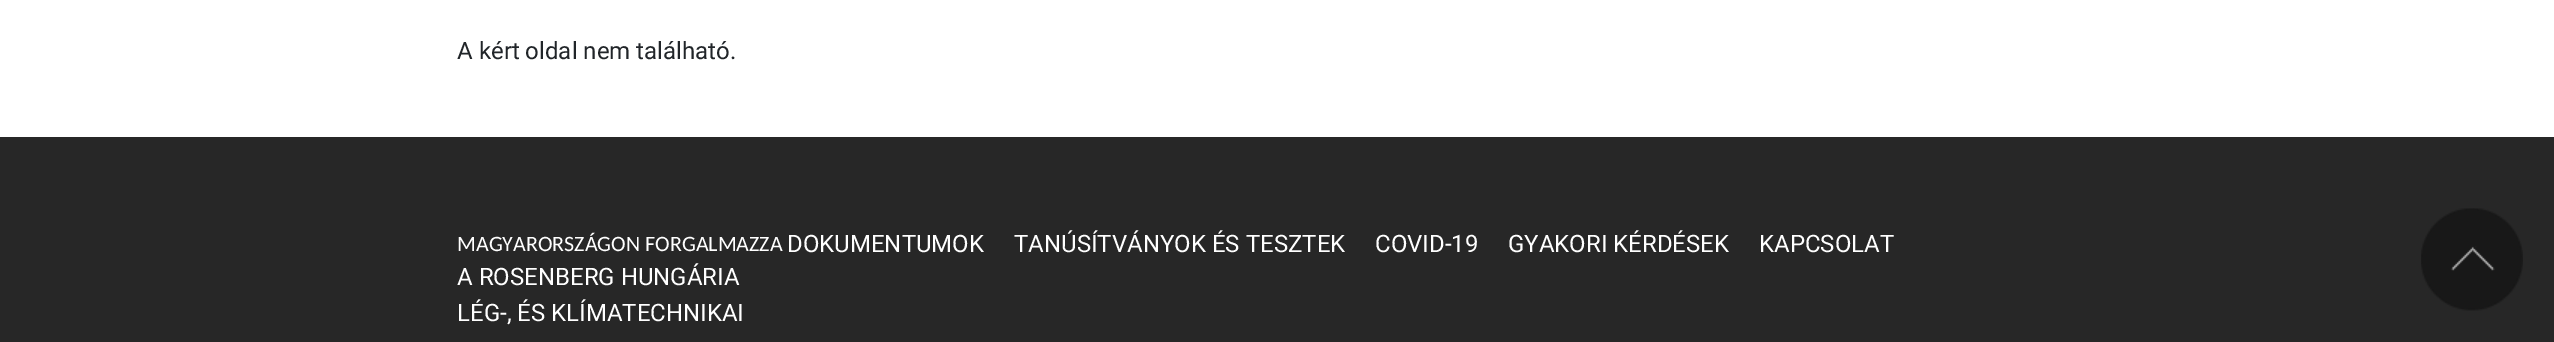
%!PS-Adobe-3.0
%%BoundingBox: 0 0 2554 342
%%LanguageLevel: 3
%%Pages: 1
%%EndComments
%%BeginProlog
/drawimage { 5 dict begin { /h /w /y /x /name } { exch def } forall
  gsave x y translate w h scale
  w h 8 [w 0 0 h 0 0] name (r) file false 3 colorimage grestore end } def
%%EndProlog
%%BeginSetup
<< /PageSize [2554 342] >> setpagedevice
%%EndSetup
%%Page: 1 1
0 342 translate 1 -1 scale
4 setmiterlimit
1 setgray
0 0 2554 342 rectfill
0.153 setgray
0 137 2554 205 rectfill
(images/1.raw) 2421 208 102 103 drawimage
/Roboto-Regular [24 0 0 -24 0 0] selectfont
0.129 0.145 0.161 setrgbcolor
457 59 moveto (A kért oldal nem található.) show
/Carlito-Regular [22 0 0 -22 0 0] selectfont
1 setgray
457 251 moveto (MAGYARORSZÁGON FORGALMAZZA) show
/Roboto-Regular [24 0 0 -24 0 0] selectfont
457 285 moveto (A ROSENBERG HUNGÁRIA) show
457 321 moveto (LÉG-, ÉS KLÍMATECHNIKAI) show
787 252 moveto (DOKUMENTUMOK) show
1014 252 moveto (TANÚSÍTVÁNYOK ÉS TESZTEK) show
1375 252 moveto (COVID-19) show
1508 252 moveto (GYAKORI KÉRDÉSEK) show
1759 252 moveto (KAPCSOLAT) show
showpage
%%EOF
